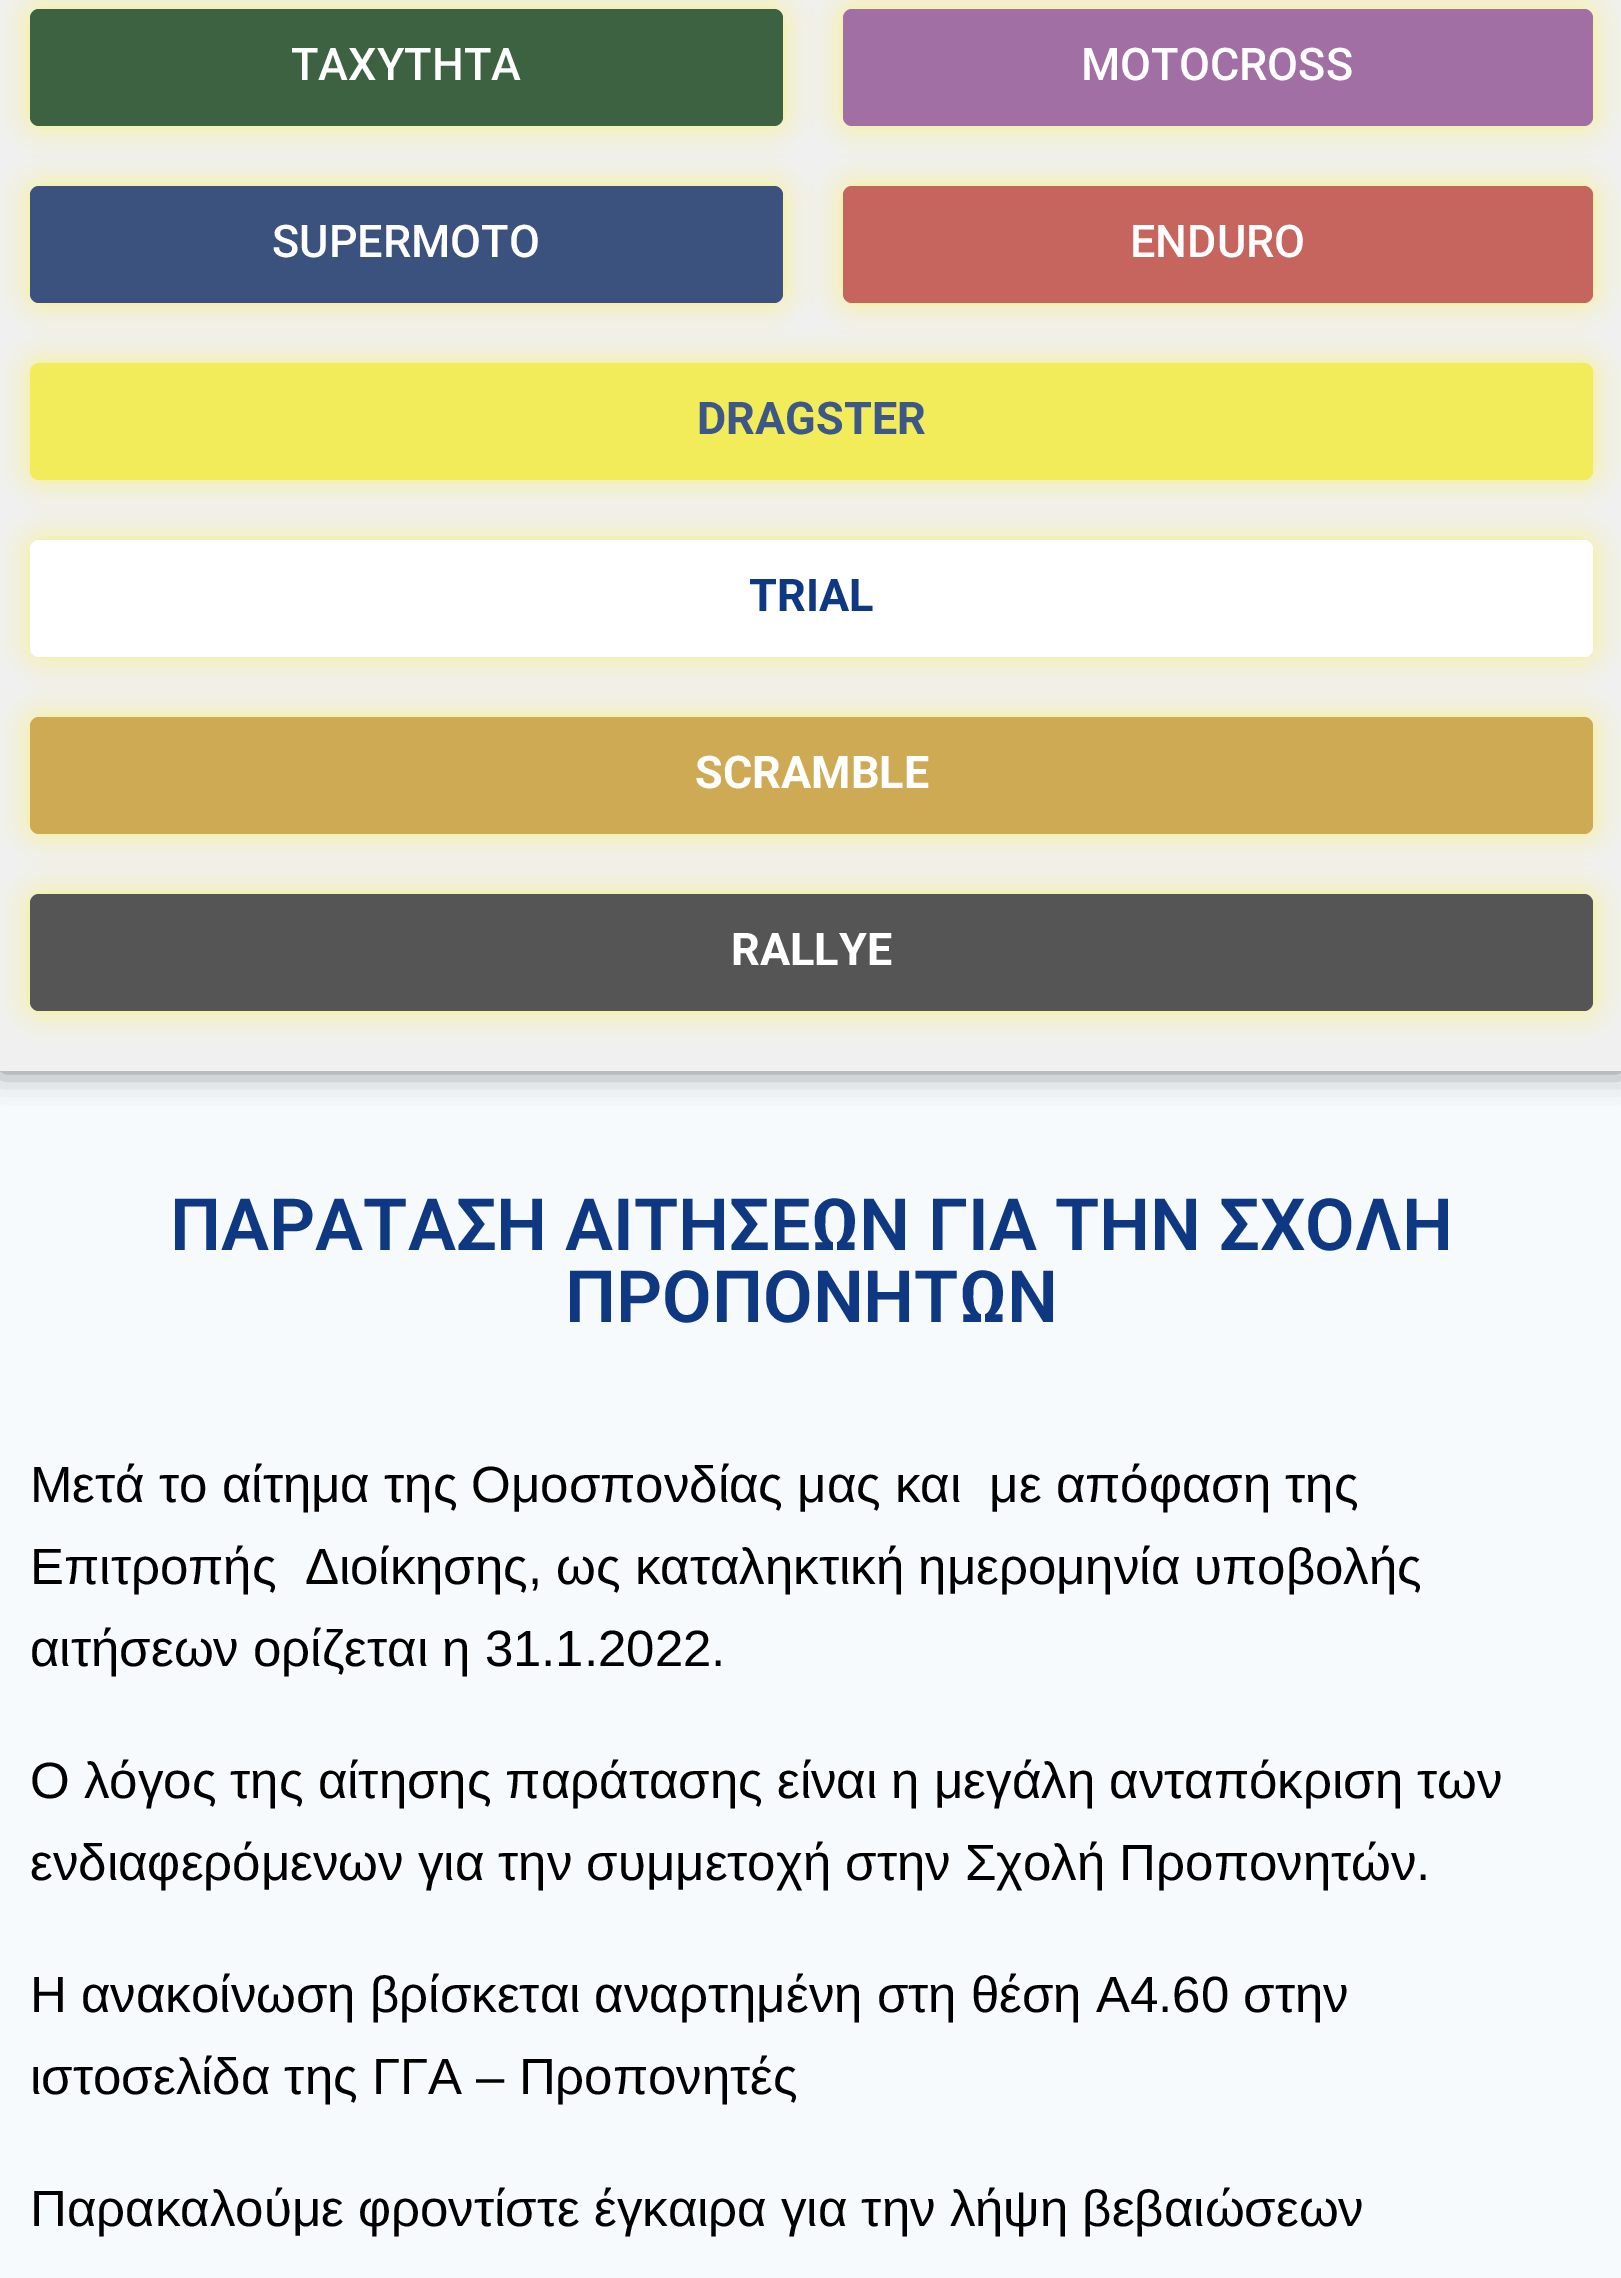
%!PS-Adobe-3.0
%%BoundingBox: 0 0 1621 2278
%%LanguageLevel: 3
%%Pages: 1
%%EndComments
%%BeginProlog
/setalpha { dup .setfillconstantalpha .setstrokeconstantalpha } def
/rrect { 5 dict begin { /r /h /w /y /x } { exch def } forall
  x r add y moveto x w add y 2 copy h add r arct x w add y h add x 1 index r arct
  x y h add x y r arct x y 2 copy exch w add exch r arct closepath end } def
/softshadow { 12 dict begin { /a /b /q /h /w /y /x } { exch def } forall gsave /was 0 def
  9 -2 -9 { dup b mul 4 div /e exch def 1 sub .425 mul 2.718 exch exp 1 add a .99 .min exch div /now exch def
    1 1 now sub 1 was sub div sub setalpha /was now def
    w h .min e 2 mul add 0 gt { x e sub y e sub w e 2 mul add h e 2 mul add
      q e add b .6 mul add w h .min 2 div e add .min 0 .max rrect fill } if } for grestore end } def
%%EndProlog
%%BeginSetup
<< /PageSize [1621 2278] /PageUsesTransparency true >> setpagedevice
%%EndSetup
%%Page: 1 1
0 .pushpdf14devicefilter
0 2278 translate 1 -1 scale
4 setmiterlimit
0.969 0.98 0.988 setrgbcolor
0 0 1621 2278 rectfill
0 setgray
0 -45 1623 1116 0 15 0.5 softshadow
0.941 setgray
0 0 1621 1071 rectfill
0.996 0.949 0 setrgbcolor
30 9 753 117 9 15 0.44 softshadow
0.239 0.384 0.255 setrgbcolor
30 9 753 117 9 rrect fill
0.996 0.949 0 setrgbcolor
843 9 750 117 9 15 0.44 softshadow
0.631 0.435 0.643 setrgbcolor
843 9 750 117 9 rrect fill
0.996 0.949 0 setrgbcolor
30 186 753 117 9 15 0.44 softshadow
0.227 0.322 0.49 setrgbcolor
30 186 753 117 9 rrect fill
0.996 0.949 0 setrgbcolor
843 186 750 117 9 15 0.44 softshadow
0.773 0.396 0.369 setrgbcolor
843 186 750 117 9 rrect fill
0.996 0.949 0 setrgbcolor
30 363 1563 117 9 15 0.44 softshadow
0.953 0.925 0.353 setrgbcolor
30 363 1563 117 9 rrect fill
0.996 0.949 0 setrgbcolor
30 540 1563 117 9 15 0.44 softshadow
1 setgray
30 540 1563 117 9 rrect fill
0.996 0.949 0 setrgbcolor
30 717 1563 117 9 15 0.44 softshadow
0.808 0.667 0.333 setrgbcolor
30 717 1563 117 9 rrect fill
0.996 0.949 0 setrgbcolor
30 894 1563 117 9 15 0.44 softshadow
0.333 setgray
30 894 1563 117 9 rrect fill
/Roboto-Medium [45 0 0 -45 0 0] selectfont
1 setgray
291 80 moveto (ΤΑΧΥΤΗΤΑ) show
1081 80 moveto (MOTOCROSS) show
272 257 moveto (SUPERMOTO) show
1130 257 moveto (ENDURO) show
/Roboto-Bold [45 0 0 -45 0 0] selectfont
0.239 0.341 0.525 setrgbcolor
697 434 moveto (DRAGSTER) show
0.055 0.22 0.51 setrgbcolor
749 611 moveto (TRIAL) show
1 setgray
695 788 moveto (SCRAMBLE) show
731 965 moveto (RALLYE) show
/Roboto-SemiBold [72 0 0 -72 0 0] selectfont
0.055 0.22 0.51 setrgbcolor
170 1250 moveto (ΠΑΡΑΤΑΣΗ ΑΙΤΗΣΕΩΝ ΓΙΑ ΤΗΝ ΣΧΟΛΗ) show
565 1322 moveto (ΠΡΟΠΟΝΗΤΩΝ) show
/LiberationSans-Regular [51 0 0 -51 0 0] selectfont
0 setgray
30 1502 moveto (Μετά το αίτημα της Ομοσπονδίας μας και  με απόφαση της) show
30 1584 moveto (Επιτροπής  Διοίκησης, ως καταληκτική ημερομηνία υποβολής) show
30 1666 moveto (αιτήσεων ορίζεται η 31.1.2022.) show
30 1798 moveto (Ο λόγος της αίτησης παράτασης είναι η μεγάλη ανταπόκριση των) show
30 1880 moveto (ενδιαφερόμενων για την συμμετοχή στην Σχολή Προπονητών.) show
30 2012 moveto (Η ανακοίνωση βρίσκεται αναρτημένη στη θέση Α4.60 στην) show
30 2094 moveto (ιστοσελίδα της ΓΓΑ – Προπονητές) show
30 2226 moveto (Παρακαλούμε φροντίστε έγκαιρα για την λήψη βεβαιώσεων) show
.poppdf14devicefilter showpage
%%EOF
